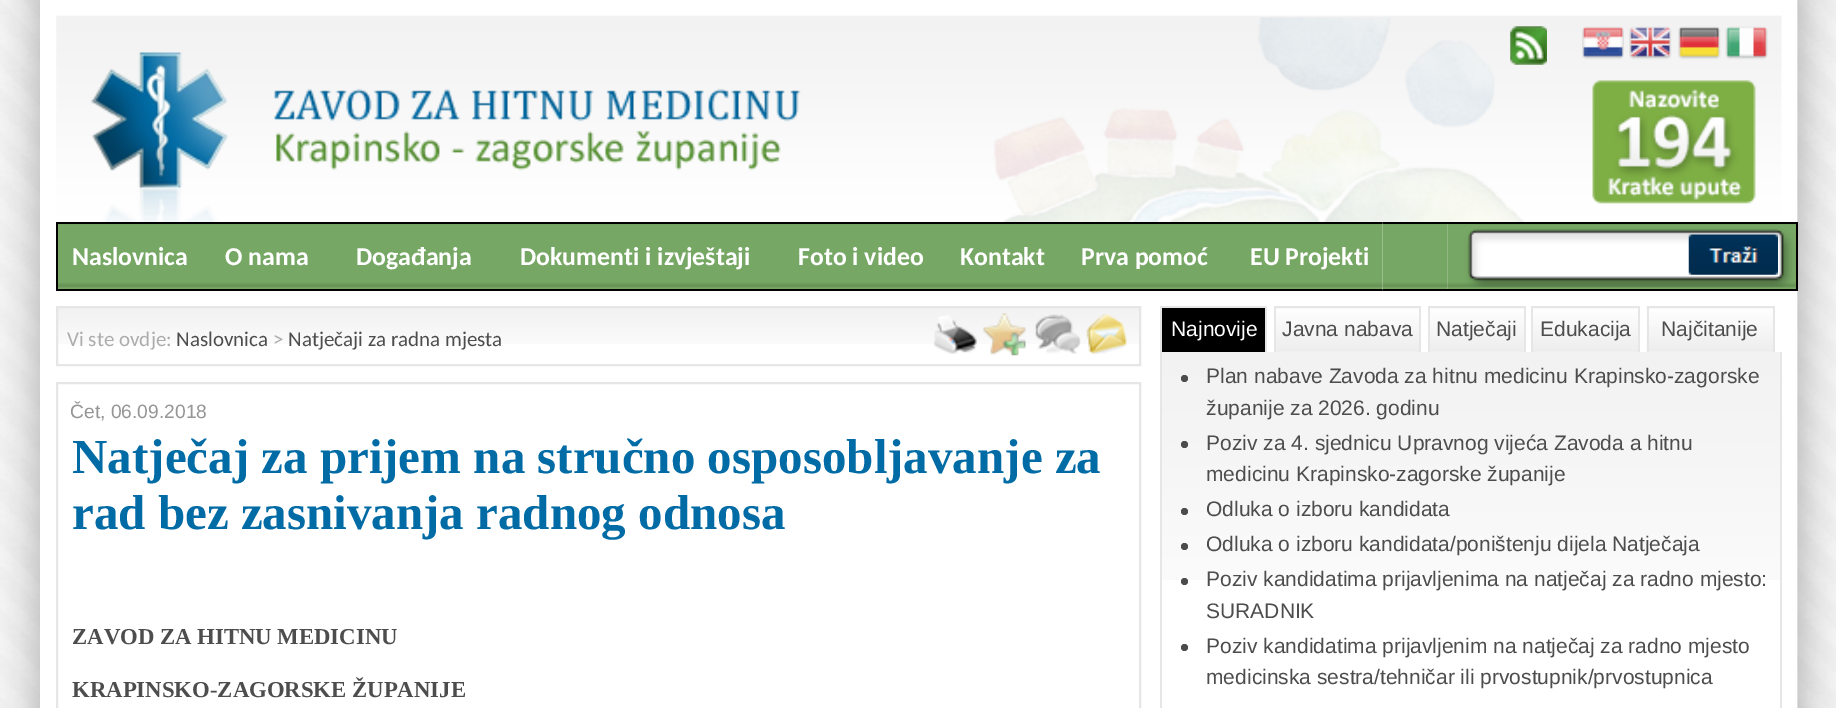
%!PS-Adobe-3.0
%%BoundingBox: 0 0 1836 708
%%LanguageLevel: 3
%%Pages: 1
%%EndComments
%%BeginProlog
/drawimage { 5 dict begin { /h /w /y /x /name } { exch def } forall
  gsave x y translate w h scale
  w h 8 [w 0 0 h 0 0] name (r) file false 3 colorimage grestore end } def
%%EndProlog
%%BeginSetup
<< /PageSize [1836 708] >> setpagedevice
%%EndSetup
%%Page: 1 1
0 708 translate 1 -1 scale
4 setmiterlimit
1 setgray
0 0 1836 708 rectfill
(images/1.raw) 0 0 1836 708 drawimage
40 0 1757 708 rectfill
(images/2.raw) 56 15 1726 207 drawimage
(images/3.raw) 1510 26 37 39 drawimage
(images/4.raw) 1582 26 42 34 drawimage
(images/5.raw) 1629 26 43 34 drawimage
(images/6.raw) 1678 26 43 34 drawimage
(images/7.raw) 1725 26 43 34 drawimage
(images/8.raw) 1592 80 164 124 drawimage
(images/10.raw) 58 224 1325 65 drawimage
0 setgray
56 222 1327 2 rectfill
56 289 1327 2 rectfill
(images/9.raw) 1382 222 66 69 drawimage
1383 222 414 2 rectfill
1383 289 64 2 rectfill
56 222 2 69 rectfill
(images/11.raw) 1447 224 349 65 drawimage
1796 222 2 69 rectfill
1447 289 350 2 rectfill
(images/12.raw) 1688 234 90 41 drawimage
(images/13.raw) 58 308 1081 36 drawimage
0.902 setgray
2 setlinewidth
57 307 1083 58 rectstroke
(images/14.raw) 933 315 44 39 drawimage
(images/15.raw) 983 313 43 43 drawimage
(images/16.raw) 1035 314 46 40 drawimage
(images/17.raw) 1086 313 41 42 drawimage
57 383 1083 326 rectstroke
0 setgray
1162 308 103 44 rectfill
0.902 setgray
1160 306 107 2 rectfill
1265 306 2 46 rectfill
1160 306 2 46 rectfill
(images/18.raw) 1276 308 143 44 drawimage
1274 306 147 2 rectfill
1419 306 2 46 rectfill
1274 306 2 46 rectfill
(images/19.raw) 1430 308 94 44 drawimage
1428 306 98 2 rectfill
1524 306 2 46 rectfill
1428 306 2 46 rectfill
(images/20.raw) 1533 308 105 44 drawimage
1531 306 109 2 rectfill
1638 306 2 46 rectfill
1531 306 2 46 rectfill
(images/21.raw) 1646 306 127 46 drawimage
1647 306 128 2 rectfill
1773 306 2 46 rectfill
1647 306 2 46 rectfill
(images/22.raw) 1162 352 618 228 drawimage
1780 352 2 356 rectfill
1160 352 2 356 rectfill
0.298 setgray
newpath 1184.5 378.5 3.5 0 360 arc closepath fill
newpath 1184.5 444.5 3.5 0 360 arc closepath fill
newpath 1184.5 511.5 3.5 0 360 arc closepath fill
newpath 1184.5 546.5 3.5 0 360 arc closepath fill
newpath 1184.5 581.5 3.5 0 360 arc closepath fill
newpath 1184.5 647.5 3.5 0 360 arc closepath fill
/Carlito-Bold [25.75 0 0 -25.75 0 0] selectfont
1 setgray
72 265 moveto (Naslovnica) show
225 265 moveto (O nama) show
356 265 moveto (Događanja) show
520 265 moveto (Dokumenti i izvještaji) show
798 265 moveto (Foto i video) show
960 265 moveto (Kontakt) show
1081 265 moveto (Prva pomoć) show
1250 265 moveto (EU Projekti) show
/Carlito-Regular [21 0 0 -21 0 0] selectfont
0.678 0.675 0.675 setrgbcolor
67 346 moveto (Vi ste ovdje:) show
0.302 setgray
176 346 moveto (Naslovnica) show
0.678 0.675 0.675 setrgbcolor
273 346 moveto (>) show
0.302 setgray
288 346 moveto (Natječaji za radna mjesta) show
/LiberationSans-Regular [19.25 0 0 -19.25 0 0] selectfont
0.588 setgray
70 418 moveto (Čet, 06.09.2018) show
/LiberationSerif-Bold [49 0 0 -49 0 0] selectfont
0.004 0.42 0.647 setrgbcolor
72 473 moveto (Natječaj za prijem na stručno osposobljavanje za) show
72 529 moveto (rad bez zasnivanja radnog odnosa) show
/LiberationSerif-Bold [22.75 0 0 -22.75 0 0] selectfont
0.302 setgray
72 644 moveto (ZAVOD ZA HITNU MEDICINU) show
72 697 moveto (KRAPINSKO-ZAGORSKE ŽUPANIJE) show
/LiberationSans-Regular [21 0 0 -21 0 0] selectfont
1 setgray
1171 336 moveto (Najnovije) show
0.302 setgray
1282 336 moveto (Javna nabava) show
1436 336 moveto (Natječaji) show
1540 336 moveto (Edukacija) show
1661 336 moveto (Najčitanije) show
1206 383 moveto (Plan nabave Zavoda za hitnu medicinu Krapinsko-zagorske) show
1206 415 moveto (županije za 2026. godinu) show
1206 450 moveto (Poziv za 4. sjednicu Upravnog vijeća Zavoda a hitnu) show
1206 481 moveto (medicinu Krapinsko-zagorske županije) show
1206 516 moveto (Odluka o izboru kandidata) show
1206 551 moveto (Odluka o izboru kandidata/poništenju dijela Natječaja) show
1206 586 moveto (Poziv kandidatima prijavljenima na natječaj za radno mjesto:) show
1206 618 moveto (SURADNIK) show
1206 653 moveto (Poziv kandidatima prijavljenim na natječaj za radno mjesto) show
1206 684 moveto (medicinska sestra/tehničar ili prvostupnik/prvostupnica) show
showpage
%%EOF
